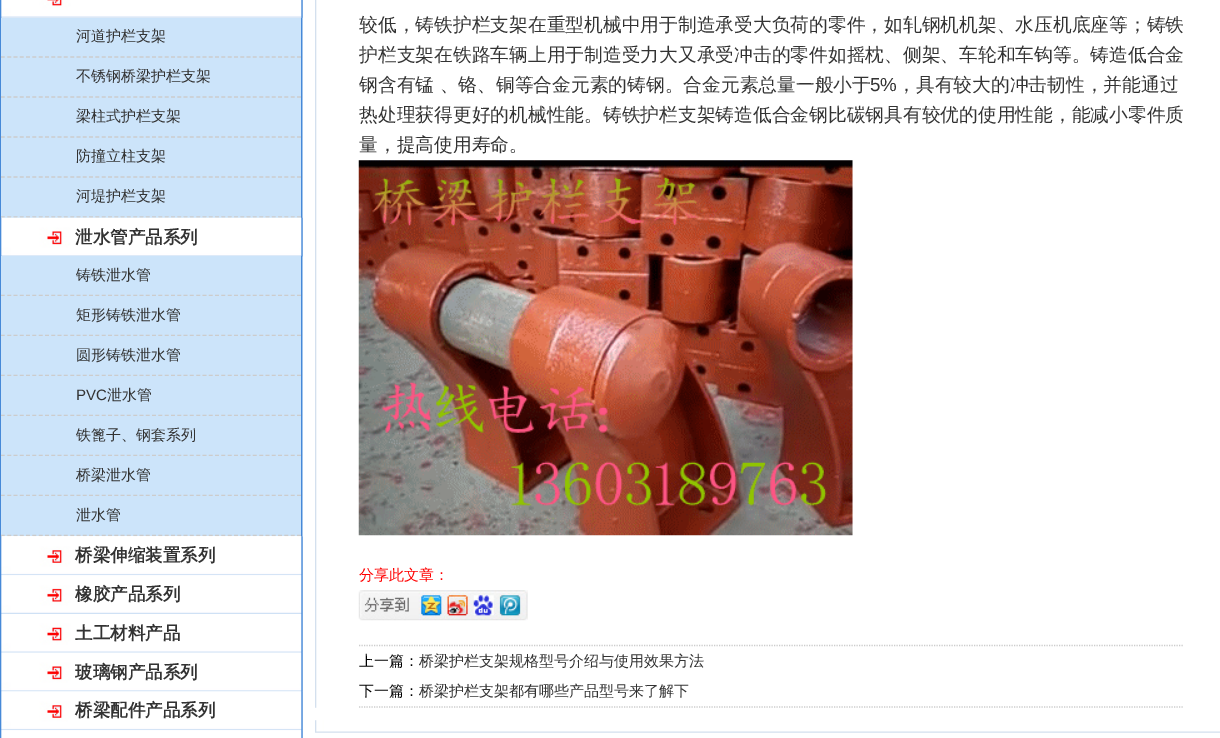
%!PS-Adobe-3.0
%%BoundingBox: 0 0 1220 738
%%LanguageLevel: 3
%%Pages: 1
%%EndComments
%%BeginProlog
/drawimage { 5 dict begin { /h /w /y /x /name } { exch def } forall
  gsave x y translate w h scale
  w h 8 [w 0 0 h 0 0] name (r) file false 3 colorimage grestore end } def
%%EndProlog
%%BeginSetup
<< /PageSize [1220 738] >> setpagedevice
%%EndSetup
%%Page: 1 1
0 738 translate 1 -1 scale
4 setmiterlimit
1 setgray
0 0 1220 738 rectfill
(images/1.raw) 0 0 303 738 drawimage
(images/2.raw) 1 0 302 18 drawimage
0.275 0.537 0.847 setrgbcolor
301 18 1 200 rectfill
0.8 0.894 0.98 setrgbcolor
1 18 300 200 rectfill
0.8 setgray
1.2 setlinewidth
[3.75 2.55] 0 setdash
newpath 1 57 moveto 301 57 lineto stroke
newpath 1 97 moveto 301 97 lineto stroke
newpath 1 137 moveto 301 137 lineto stroke
newpath 1 177 moveto 301 177 lineto stroke
newpath 1 217 moveto 301 217 lineto stroke
(images/3.raw) 1 217 302 40 drawimage
0.275 0.537 0.847 setrgbcolor
301 256 1 280 rectfill
0.8 0.894 0.98 setrgbcolor
1 256 300 40 rectfill
0.8 setgray
newpath 1 295.5 moveto 301 295.5 lineto stroke
0.8 0.894 0.98 setrgbcolor
1 296 300 40 rectfill
0.8 setgray
newpath 1 335.5 moveto 301 335.5 lineto stroke
0.8 0.894 0.98 setrgbcolor
1 336 300 40 rectfill
0.8 setgray
newpath 1 375.5 moveto 301 375.5 lineto stroke
0.8 0.894 0.98 setrgbcolor
1 376 300 40 rectfill
0.8 setgray
newpath 1 415.5 moveto 301 415.5 lineto stroke
0.8 0.894 0.98 setrgbcolor
1 416 300 40 rectfill
0.8 setgray
newpath 1 455.5 moveto 301 455.5 lineto stroke
0.8 0.894 0.98 setrgbcolor
1 456 300 40 rectfill
0.8 setgray
newpath 1 495.5 moveto 301 495.5 lineto stroke
0.8 0.894 0.98 setrgbcolor
1 496 300 40 rectfill
0.8 setgray
newpath 1 535.5 moveto 301 535.5 lineto stroke
(images/4.raw) 1 536 302 40 drawimage
(images/5.raw) 1 575 302 39 drawimage
(images/6.raw) 1 614 302 39 drawimage
(images/7.raw) 1 652 302 40 drawimage
(images/8.raw) 1 691 302 40 drawimage
(images/9.raw) 1 730 302 8 drawimage
(images/10.raw) 315 0 2 708 drawimage
0.969 setgray
359 160 494 375 rectfill
(images/11.raw) 358 160 495 376 drawimage
359 590 169 30 rectfill
(images/12.raw) 358 590 170 31 drawimage
0.8 setgray
[1.25 1.25] 0 setdash
newpath 359 645.5 moveto 1184 645.5 lineto stroke
newpath 359 707 moveto 1184 707 lineto stroke
(images/13.raw) 315 720 905 13 drawimage
/WenQuanYiZenHei-Medium [15 0 0 -15 0 0] selectfont
0.2 setgray
76 41 moveto (河道护栏支架) show
76 81 moveto (不锈钢桥梁护栏支架) show
76 121 moveto (梁柱式护栏支架) show
76 161 moveto (防撞立柱支架) show
76 201 moveto (河堤护栏支架) show
/WenQuanYiZenHei-Bold [17.5 0 0 -17.5 0 0] selectfont
75 243 moveto (泄水管产品系列) show
/WenQuanYiZenHei-Medium [15 0 0 -15 0 0] selectfont
76 280 moveto (铸铁泄水管) show
76 320 moveto (矩形铸铁泄水管) show
76 360 moveto (圆形铸铁泄水管) show
/LiberationSans-Regular [15 0 0 -15 0 0] selectfont
76 400 moveto (PVC) show
/WenQuanYiZenHei-Medium [15 0 0 -15 0 0] selectfont
107 400 moveto (泄水管) show
76 440 moveto (铁篦子、钢套系列) show
76 480 moveto (桥梁泄水管) show
76 520 moveto (泄水管) show
/WenQuanYiZenHei-Bold [17.5 0 0 -17.5 0 0] selectfont
75 561 moveto (桥梁伸缩装置系列) show
75 600 moveto (橡胶产品系列) show
75 639 moveto (土工材料产品) show
75 678 moveto (玻璃钢产品系列) show
75 716 moveto (桥梁配件产品系列) show
/WenQuanYiZenHei-Medium [18.75 0 0 -18.75 0 0] selectfont
359 31 moveto (较低，铸铁护栏支架在重型机械中用于制造承受大负荷的零件，如轧钢机机架、水压机底座等；铸铁) show
359 61 moveto (护栏支架在铁路车辆上用于制造受力大又承受冲击的零件如摇枕、侧架、车轮和车钩等。铸造低合金) show
359 91 moveto (钢含有锰 、铬、铜等合金元素的铸钢。合金元素总量一般小于) show
/LiberationSans-Regular [18.75 0 0 -18.75 0 0] selectfont
870 91 moveto (5%) show
/WenQuanYiZenHei-Medium [18.75 0 0 -18.75 0 0] selectfont
897 91 moveto (，具有较大的冲击韧性，并能通过) show
359 121 moveto (热处理获得更好的机械性能。铸铁护栏支架铸造低合金钢比碳钢具有较优的使用性能，能减小零件质) show
359 151 moveto (量，提高使用寿命。) show
/WenQuanYiZenHei-Medium [15 0 0 -15 0 0] selectfont
1 0 0 setrgbcolor
359 580 moveto (分享此文章：) show
0 setgray
359 666 moveto (上一篇：) show
0.2 setgray
419 666 moveto (桥梁护栏支架规格型号介绍与使用效果方法) show
0 setgray
359 696 moveto (下一篇：) show
0.2 setgray
419 696 moveto (桥梁护栏支架都有哪些产品型号来了解下) show
showpage
%%EOF
